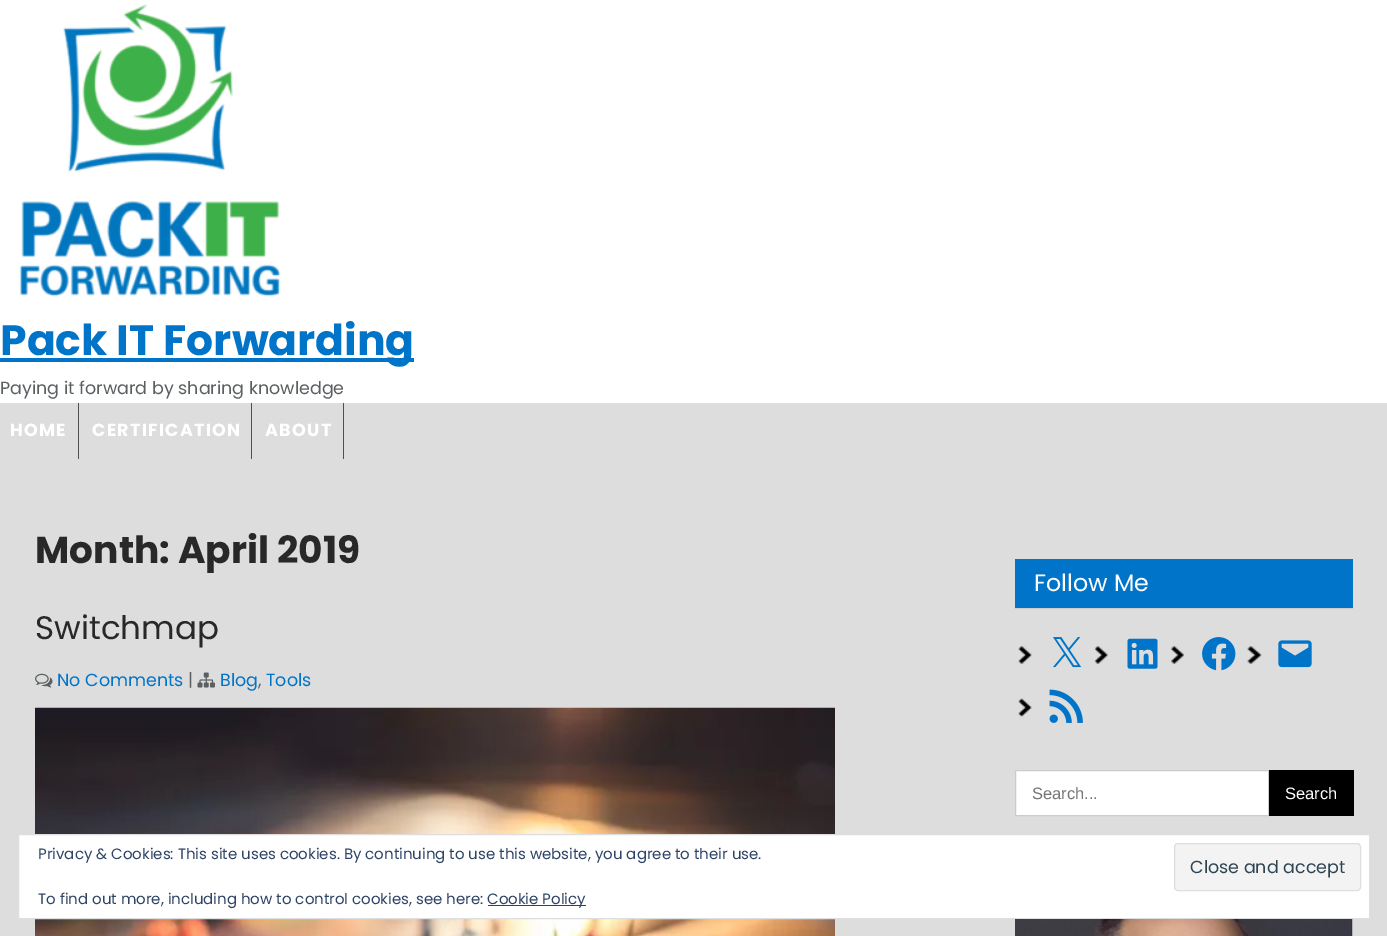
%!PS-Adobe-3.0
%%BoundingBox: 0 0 1387 936
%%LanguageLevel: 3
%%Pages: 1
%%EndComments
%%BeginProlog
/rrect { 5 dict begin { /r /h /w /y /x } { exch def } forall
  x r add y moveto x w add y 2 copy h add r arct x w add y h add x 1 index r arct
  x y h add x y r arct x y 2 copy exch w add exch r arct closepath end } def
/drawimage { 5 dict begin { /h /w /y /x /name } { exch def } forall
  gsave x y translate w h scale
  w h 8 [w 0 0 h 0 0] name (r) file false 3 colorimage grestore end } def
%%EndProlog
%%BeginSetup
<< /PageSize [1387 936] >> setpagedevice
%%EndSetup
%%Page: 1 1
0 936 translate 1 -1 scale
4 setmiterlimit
0.867 setgray
0 0 1387 936 rectfill
1 setgray
0 0 1387 403 rectfill
(images/1.raw) 19 4 262 293 drawimage
0 0.455 0.784 setrgbcolor
0 358 414 4 rectfill
0.31 setgray
78 403 1 56 rectfill
251 403 1 56 rectfill
343 403 1 56 rectfill
(images/2.raw) 35 673 18 15 drawimage
(images/3.raw) 197 672 18 16 drawimage
(images/4.raw) 35 707 800 229 drawimage
0 0.455 0.784 setrgbcolor
1015 559 338 49 rectfill
0.8 setgray
1015 608 338 1 rectfill
(images/5.raw) 1018 646 14 18 drawimage
(images/6.raw) 1053 637 29 31 drawimage
(images/7.raw) 1094 646 14 18 drawimage
(images/8.raw) 1127 638 31 31 drawimage
(images/9.raw) 1171 646 13 18 drawimage
(images/10.raw) 1202 637 34 34 drawimage
(images/11.raw) 1247 646 15 18 drawimage
(images/12.raw) 1278 640 34 28 drawimage
(images/13.raw) 1018 698 14 19 drawimage
(images/14.raw) 1049 689 34 34 drawimage
1 setgray
newpath 1015.5 770.5 moveto 1268.5 770.5 lineto 1268.5 815.5 lineto 1015.5 815.5 lineto closepath gsave fill grestore
0.8 setgray
stroke
0 setgray
1269 770 85 46 rectfill
1 setgray
newpath 18.5 834.5 moveto 1369.5 834.5 lineto 1369.5 918.5 lineto 18.5 918.5 lineto closepath gsave fill grestore
0.871 setgray
stroke
0.953 setgray
1174.5 843.5 186 47 3.5 rrect gsave fill grestore
0.871 setgray
stroke
0.18 0.267 0.404 setrgbcolor
488 905 98 1 rectfill
(images/15.raw) 1015 919 338 17 drawimage
/Poppins-Bold [42.5 0 0 -42.5 0 0] selectfont
0 0.455 0.784 setrgbcolor
0 355 moveto (Pack IT Forwarding) show
/Poppins-Regular [17.5 0 0 -17.5 0 0] selectfont
0.353 0.373 0.38 setrgbcolor
0 394 moveto (Paying it forward by sharing knowledge) show
/Poppins-Bold [17.5 0 0 -17.5 0 0] selectfont
1 setgray
10 436 moveto 1.25 0 (HOME) ashow
92 436 moveto 1.25 0 (CERTIFICATION) ashow
265 436 moveto 1.25 0 (ABOUT) ashow
/Poppins-Bold [37.5 0 0 -37.5 0 0] selectfont
0.157 setgray
35 563 moveto (Month: April 2019) show
/Poppins-Regular [32.5 0 0 -32.5 0 0] selectfont
35 639 moveto (Switchmap) show
/Poppins-Regular [17.5 0 0 -17.5 0 0] selectfont
0 0.455 0.784 setrgbcolor
57 686 moveto (No Comments) show
0.353 0.373 0.38 setrgbcolor
188 686 moveto (|) show
0 0.455 0.784 setrgbcolor
220 686 moveto (Blog) show
0.353 0.373 0.38 setrgbcolor
258 686 moveto (,) show
0 0.455 0.784 setrgbcolor
266 686 moveto (Tools) show
/Poppins-Regular [23.75 0 0 -23.75 0 0] selectfont
1 setgray
1034 591 moveto (Follow Me) show
/LiberationSans-Regular [16.5 0 0 -16.5 0 0] selectfont
0.459 setgray
1032 799 moveto (Search...) show
1 setgray
1285 799 moveto (Search) show
/Poppins-Regular [15 0 0 -15 0 0] selectfont
0.18 0.267 0.404 setrgbcolor
38 859 moveto (Privacy & Cookies: This site uses cookies. By continuing to use this website, you agree to their use.) show
/Poppins-Regular [17.5 0 0 -17.5 0 0] selectfont
0.18 0.267 0.325 setrgbcolor
1190 873 moveto (Close and accept) show
/Poppins-Regular [15 0 0 -15 0 0] selectfont
0.18 0.267 0.404 setrgbcolor
38 904 moveto (To find out more, including how to control cookies, see here:) show
487 904 moveto (Cookie Policy) show
showpage
%%EOF
